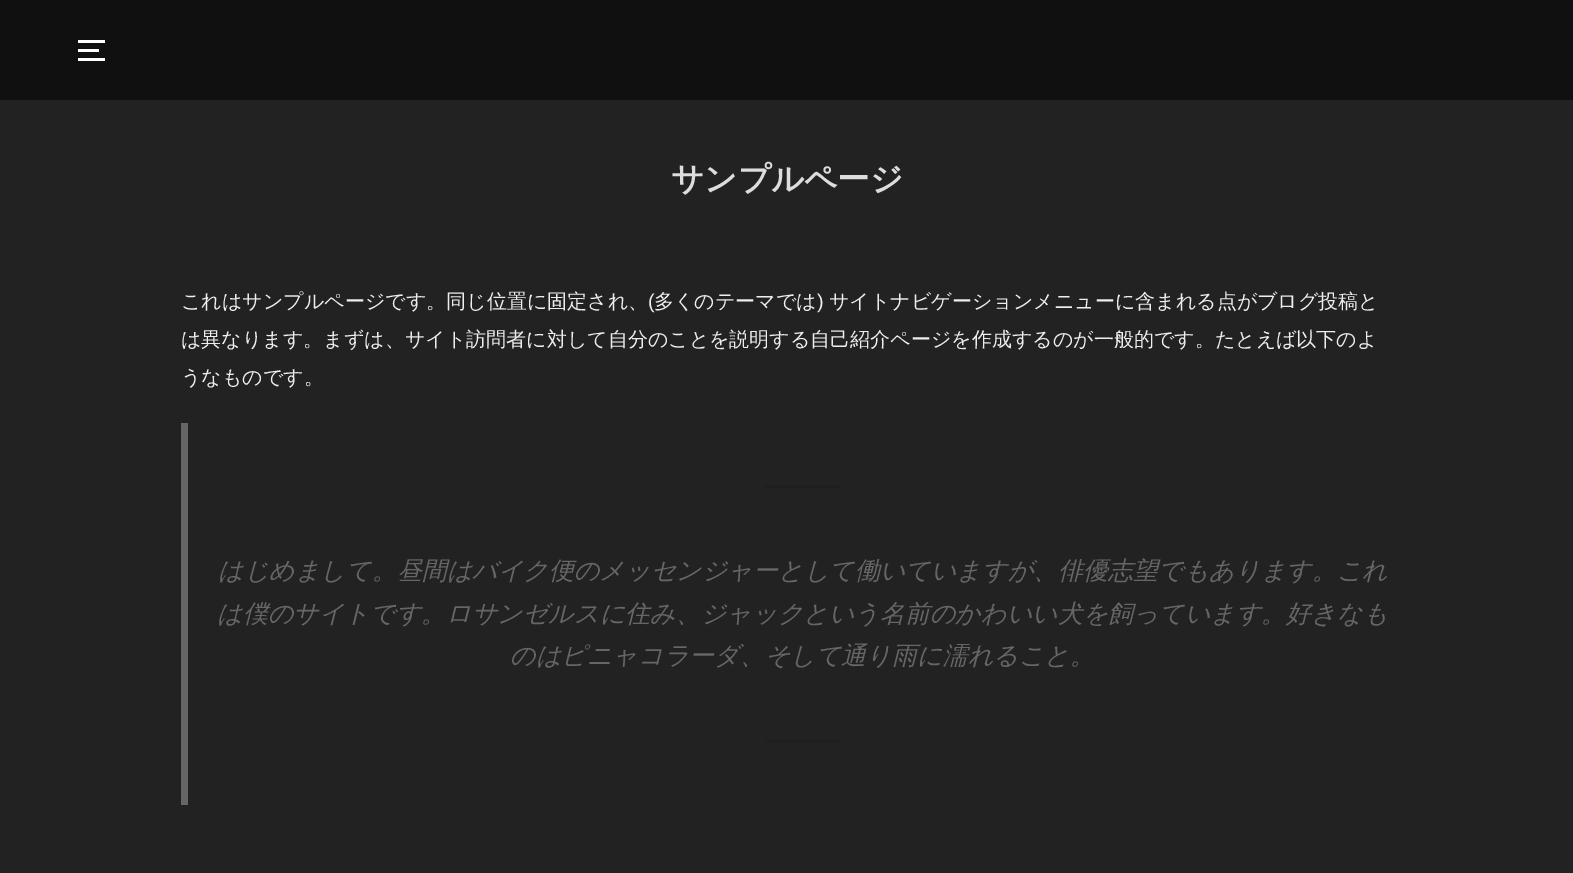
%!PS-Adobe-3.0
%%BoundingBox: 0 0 1573 873
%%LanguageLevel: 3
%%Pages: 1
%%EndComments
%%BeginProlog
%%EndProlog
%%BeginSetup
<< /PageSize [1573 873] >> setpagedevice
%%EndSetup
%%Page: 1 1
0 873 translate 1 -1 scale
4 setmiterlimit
0.133 setgray
0 0 1573 873 rectfill
0.063 setgray
0 0 1573 100 rectfill
1 setgray
78 40 27 3 rectfill
78 49 21 3 rectfill
78 58 27 3 rectfill
0.4 setgray
181 423 7 382 rectfill
0.122 setgray
765 485 75 3 rectfill
765 740 75 3 rectfill
/WenQuanYiZenHei-Bold [32.5 0 0 -32.5 0 0] selectfont
0.867 setgray
671 190 moveto (サンプルページ) show
/WenQuanYiZenHei-Medium [20 0 0 -20 0 0] selectfont
0.933 setgray
181 308 moveto (これはサンプルページです。同じ位置に固定され、) show
/LiberationSans-Regular [20 0 0 -20 0 0] selectfont
648 308 moveto (\() show
/WenQuanYiZenHei-Medium [20 0 0 -20 0 0] selectfont
654 308 moveto (多くのテーマでは) show
/LiberationSans-Regular [20 0 0 -20 0 0] selectfont
817 308 moveto (\)) show
/WenQuanYiZenHei-Medium [20 0 0 -20 0 0] selectfont
829 308 moveto (サイトナビゲーションメニューに含まれる点がブログ投稿と) show
181 346 moveto (は異なります。まずは、サイト訪問者に対して自分のことを説明する自己紹介ページを作成するのが一般的です。たとえば以下のよ) show
181 384 moveto (うなものです。) show
/WenQuanYiZenHei-MediumItalic [25 0 0 -25 0 0] selectfont
0.4 setgray
218 579 moveto (はじめまして。昼間はバイク便のメッセンジャーとして働いていますが、俳優志望でもあります。これ) show
217 622 moveto (は僕のサイトです。ロサンゼルスに住み、ジャックという名前のかわいい犬を飼っています。好きなも) show
510 664 moveto (のはピニャコラーダ、そして通り雨に濡れること。) show
showpage
%%EOF
